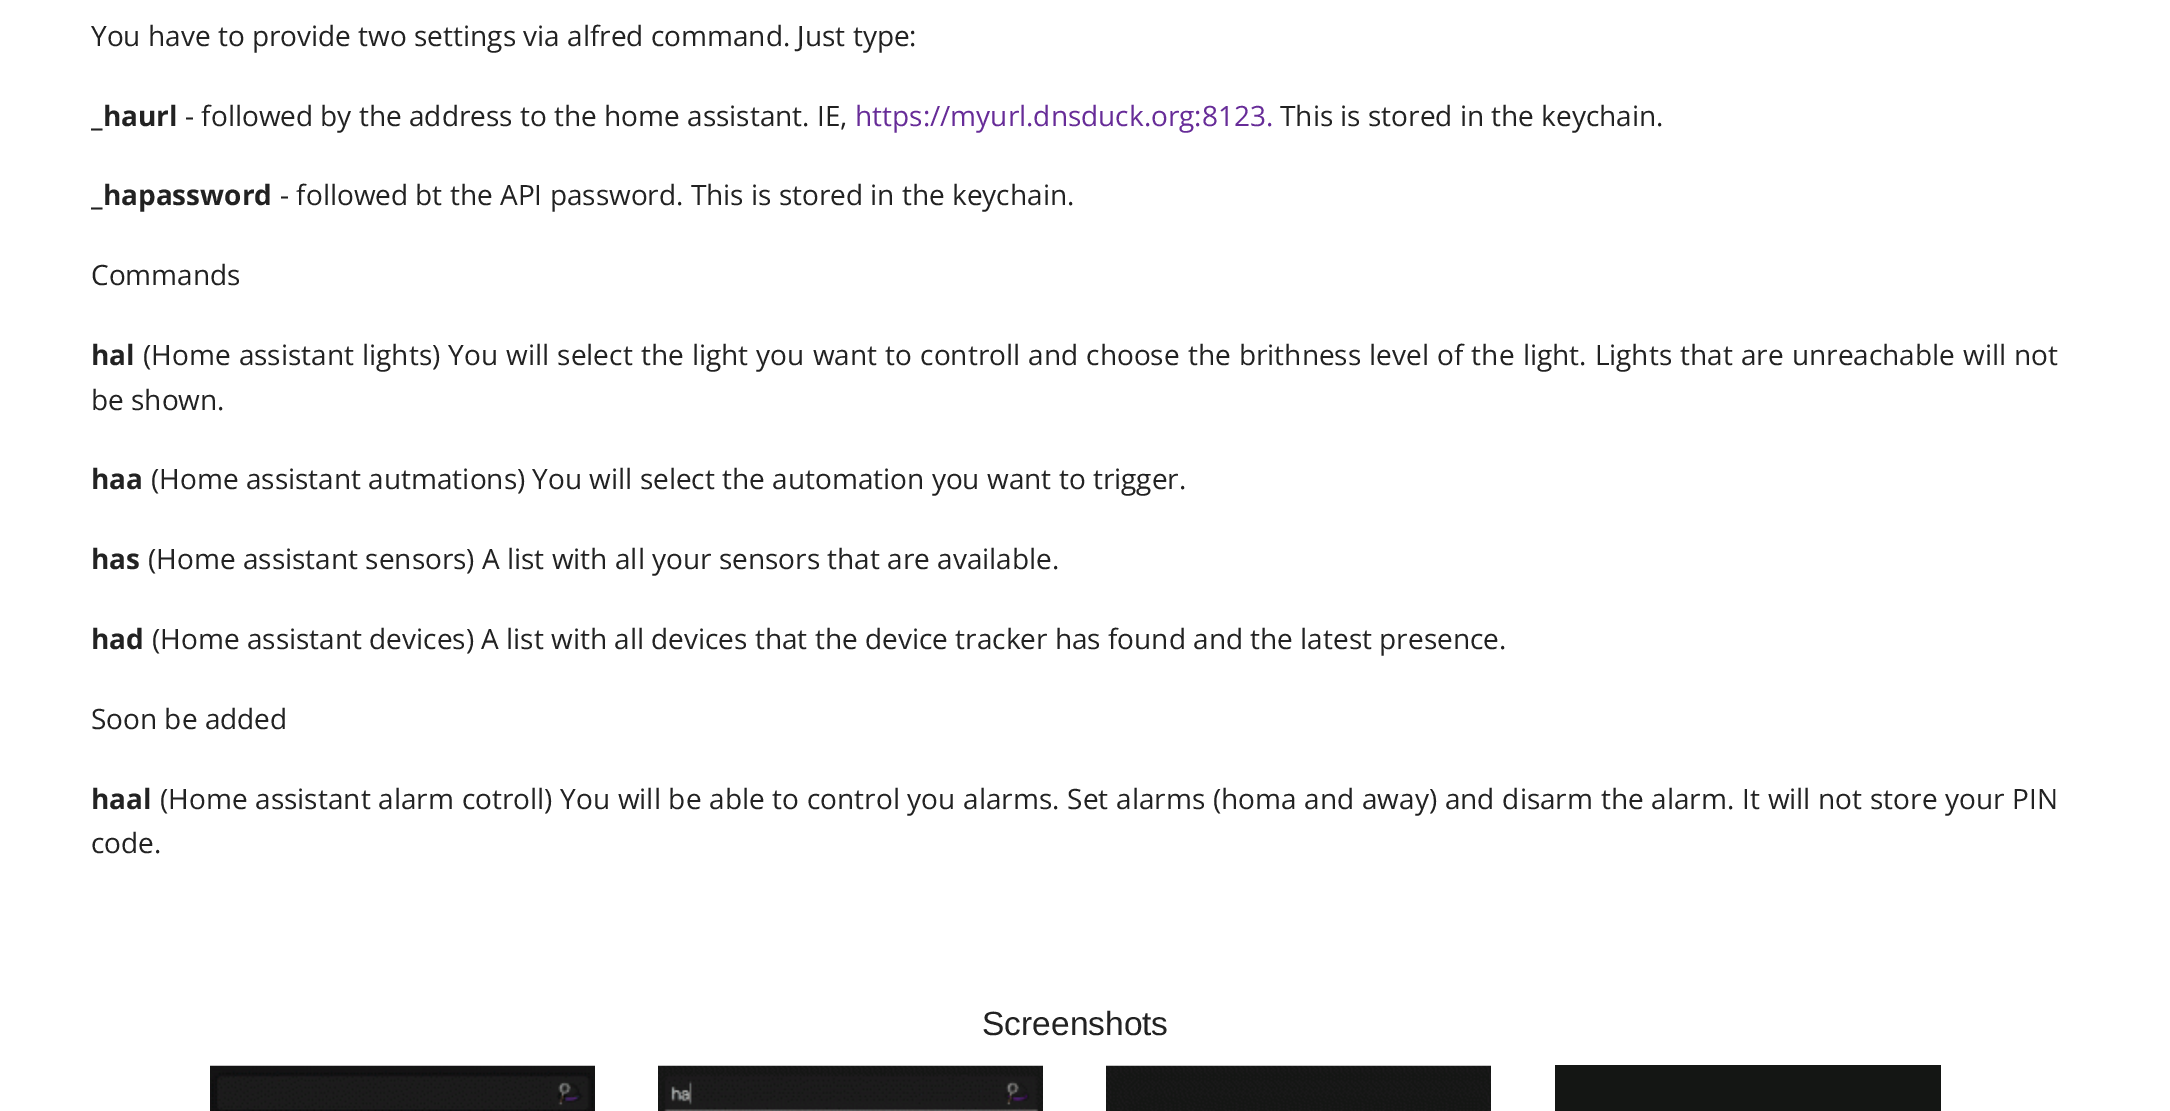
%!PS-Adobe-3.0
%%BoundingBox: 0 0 2170 1111
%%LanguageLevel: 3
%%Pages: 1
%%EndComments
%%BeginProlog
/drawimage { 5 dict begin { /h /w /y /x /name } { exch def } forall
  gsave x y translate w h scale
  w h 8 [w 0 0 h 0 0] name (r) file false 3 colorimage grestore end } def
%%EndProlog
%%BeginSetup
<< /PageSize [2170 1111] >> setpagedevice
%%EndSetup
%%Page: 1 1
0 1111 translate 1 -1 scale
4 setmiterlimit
1 setgray
0 0 2170 1111 rectfill
(images/1.raw) 210 1065 385 46 drawimage
(images/2.raw) 658 1065 385 46 drawimage
(images/3.raw) 1106 1065 385 46 drawimage
0.078 0.086 0.078 setrgbcolor
1555 1065 386 46 rectfill
/OpenSans-Regular [28 0 0 -28 0 0] selectfont
0.133 setgray
91 46 moveto (You have to provide two settings via alfred command. Just type:) show
/OpenSans-Bold [28 0 0 -28 0 0] selectfont
91 126 moveto (_haurl) show
/OpenSans-Regular [28 0 0 -28 0 0] selectfont
185 126 moveto (- followed by the address to the home assistant. IE,) show
0.404 0.173 0.596 setrgbcolor
855 126 moveto (https://myurl.dnsduck.org:8123.) show
0.133 setgray
1280 126 moveto (This is stored in the keychain.) show
/OpenSans-Bold [28 0 0 -28 0 0] selectfont
91 205 moveto (_hapassword) show
/OpenSans-Regular [28 0 0 -28 0 0] selectfont
280 205 moveto (- followed bt the API password. This is stored in the keychain.) show
91 285 moveto (Commands) show
/OpenSans-Bold [28 0 0 -28 0 0] selectfont
91 365 moveto (hal) show
/OpenSans-Regular [28 0 0 -28 0 0] selectfont
143 365 moveto 0.9 0 32 (\(Home assistant lights\) You will select the light you want to controll and choose the brithness level of the light. Lights that are unreachable will not) widthshow
91 410 moveto (be shown.) show
/OpenSans-Bold [28 0 0 -28 0 0] selectfont
91 489 moveto (haa) show
/OpenSans-Regular [28 0 0 -28 0 0] selectfont
151 489 moveto (\(Home assistant autmations\) You will select the automation you want to trigger.) show
/OpenSans-Bold [28 0 0 -28 0 0] selectfont
91 569 moveto (has) show
/OpenSans-Regular [28 0 0 -28 0 0] selectfont
148 569 moveto (\(Home assistant sensors\) A list with all your sensors that are available.) show
/OpenSans-Bold [28 0 0 -28 0 0] selectfont
91 649 moveto (had) show
/OpenSans-Regular [28 0 0 -28 0 0] selectfont
152 649 moveto (\(Home assistant devices\) A list with all devices that the device tracker has found and the latest presence.) show
91 729 moveto (Soon be added) show
/OpenSans-Bold [28 0 0 -28 0 0] selectfont
91 809 moveto (haal) show
/OpenSans-Regular [28 0 0 -28 0 0] selectfont
160 809 moveto 0.5 0 32 (\(Home assistant alarm cotroll\) You will be able to control you alarms. Set alarms \(homa and away\) and disarm the alarm. It will not store your PIN) widthshow
91 853 moveto (code.) show
/LiberationSans-Regular [33.5 0 0 -33.5 0 0] selectfont
982 1035 moveto (Screenshots) show
showpage
%%EOF
